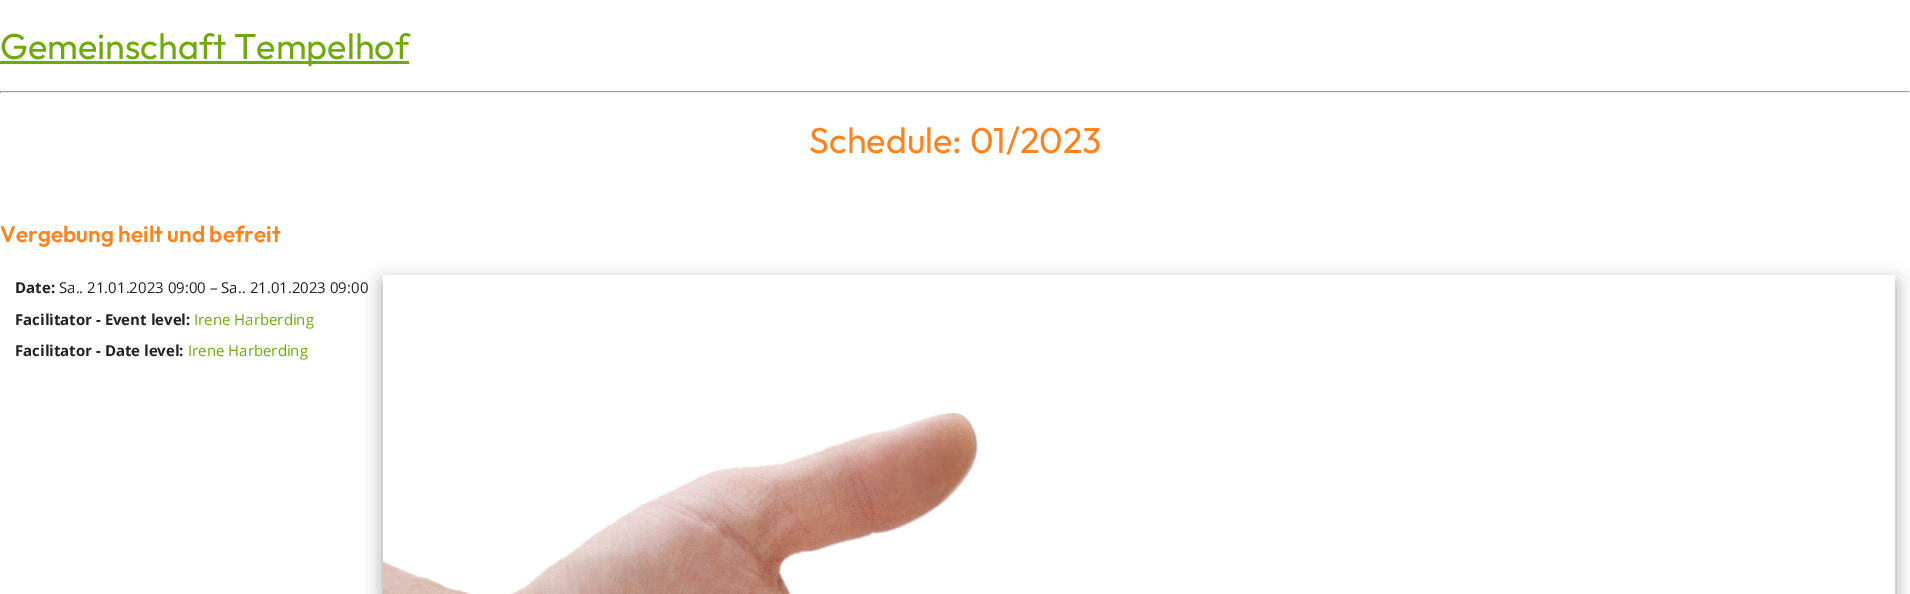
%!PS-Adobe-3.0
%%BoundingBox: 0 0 1910 594
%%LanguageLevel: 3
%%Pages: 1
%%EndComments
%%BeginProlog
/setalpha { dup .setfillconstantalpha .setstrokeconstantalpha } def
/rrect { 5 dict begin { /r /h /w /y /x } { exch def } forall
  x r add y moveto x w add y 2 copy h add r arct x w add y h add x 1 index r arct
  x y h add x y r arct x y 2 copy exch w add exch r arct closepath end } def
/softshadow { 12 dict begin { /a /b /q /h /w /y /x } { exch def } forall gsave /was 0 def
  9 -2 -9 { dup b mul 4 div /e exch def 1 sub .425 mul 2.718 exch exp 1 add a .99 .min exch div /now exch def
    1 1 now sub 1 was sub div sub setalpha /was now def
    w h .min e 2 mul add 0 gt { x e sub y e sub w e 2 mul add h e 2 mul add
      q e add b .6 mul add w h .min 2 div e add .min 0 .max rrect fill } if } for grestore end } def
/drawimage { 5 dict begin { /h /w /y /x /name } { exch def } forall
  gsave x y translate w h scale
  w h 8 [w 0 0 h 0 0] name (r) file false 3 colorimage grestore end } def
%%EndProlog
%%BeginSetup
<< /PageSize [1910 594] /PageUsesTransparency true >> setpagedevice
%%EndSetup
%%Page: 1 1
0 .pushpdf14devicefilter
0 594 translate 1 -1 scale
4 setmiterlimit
1 setgray
0 0 1910 594 rectfill
0.431 0.663 0.051 setrgbcolor
0 61 409 3 rectfill
0.624 setgray
0 91 1910 1 rectfill
0.933 setgray
1909 91 1 2 rectfill
0 92 1910 1 rectfill
0.624 setgray
0 91 1 2 rectfill
gsave
newpath 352 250 moveto 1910 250 lineto 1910 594 lineto 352 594 lineto closepath 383 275 moveto 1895 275 lineto 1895 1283 lineto 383 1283 lineto closepath eoclip newpath
0 setgray
383 281 1512 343 0 10 0.19 softshadow
grestore
gsave
newpath 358 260 moveto 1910 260 lineto 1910 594 lineto 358 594 lineto closepath 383 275 moveto 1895 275 lineto 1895 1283 lineto 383 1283 lineto closepath eoclip newpath
0 setgray
383 285 1512 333 0 8 0.2 softshadow
grestore
(images/1.raw) 383 412 668 182 drawimage
/Outfit-Regular [36 0 0 -36 0 0] selectfont
0.431 0.663 0.051 setrgbcolor
0 59 moveto (Gemeinschaft Tempelhof) show
1 0.514 0.118 setrgbcolor
809 153 moveto (Schedule: 01/2023) show
/Outfit-SemiBold [22.5 0 0 -22.5 0 0] selectfont
0 242 moveto (Vergebung heilt und befreit) show
/OpenSans-Bold [15 0 0 -15 0 0] selectfont
0.133 setgray
15 293 moveto (Date:) show
/OpenSans-Regular [15 0 0 -15 0 0] selectfont
59 293 moveto (Sa.. 21.01.2023 09:00 – Sa.. 21.01.2023 09:00) show
/OpenSans-Bold [15 0 0 -15 0 0] selectfont
15 325 moveto (Facilitator - Event level:) show
/OpenSans-Regular [15 0 0 -15 0 0] selectfont
0.431 0.663 0.051 setrgbcolor
194 325 moveto (Irene Harberding) show
/OpenSans-Bold [15 0 0 -15 0 0] selectfont
0.133 setgray
15 356 moveto (Facilitator - Date level:) show
/OpenSans-Regular [15 0 0 -15 0 0] selectfont
0.431 0.663 0.051 setrgbcolor
188 356 moveto (Irene Harberding) show
.poppdf14devicefilter showpage
%%EOF
